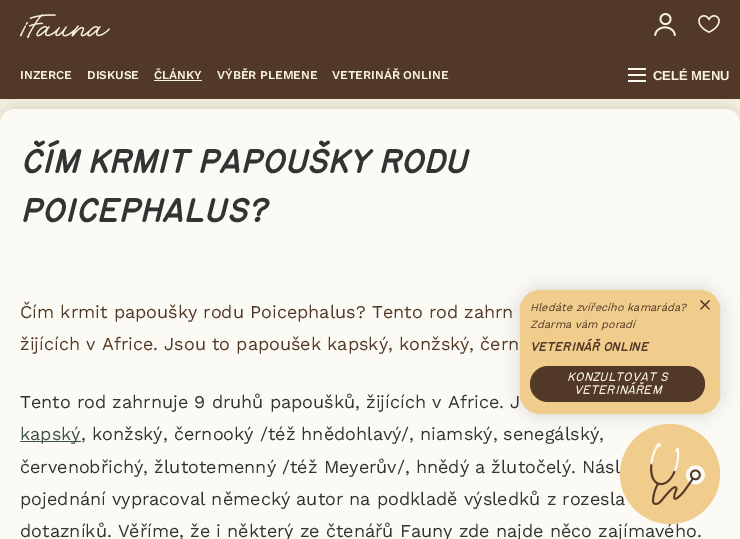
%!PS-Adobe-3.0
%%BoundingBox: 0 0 740 539
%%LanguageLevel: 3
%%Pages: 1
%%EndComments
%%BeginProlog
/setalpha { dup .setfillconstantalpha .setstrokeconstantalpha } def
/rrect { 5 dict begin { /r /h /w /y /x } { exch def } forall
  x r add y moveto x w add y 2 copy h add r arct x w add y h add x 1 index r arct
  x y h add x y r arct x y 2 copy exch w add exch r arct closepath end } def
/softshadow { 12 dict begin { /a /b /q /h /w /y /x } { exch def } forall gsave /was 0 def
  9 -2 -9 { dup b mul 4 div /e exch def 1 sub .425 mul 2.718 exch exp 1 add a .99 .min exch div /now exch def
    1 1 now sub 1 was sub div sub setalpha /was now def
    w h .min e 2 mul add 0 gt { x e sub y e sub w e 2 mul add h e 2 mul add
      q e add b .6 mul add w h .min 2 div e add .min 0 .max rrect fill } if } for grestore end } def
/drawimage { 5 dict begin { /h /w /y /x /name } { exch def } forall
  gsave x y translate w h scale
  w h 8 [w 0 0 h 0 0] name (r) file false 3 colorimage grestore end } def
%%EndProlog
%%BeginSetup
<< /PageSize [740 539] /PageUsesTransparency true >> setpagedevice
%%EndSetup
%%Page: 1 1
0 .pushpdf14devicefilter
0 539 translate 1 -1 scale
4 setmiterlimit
0.969 0.949 0.878 setrgbcolor
0 0 740 539 rectfill
0 setgray
0 109 740 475 15 10 0.15 softshadow
0.322 0.22 0.149 setrgbcolor
0 0 740 99 rectfill
(images/1.raw) 20 14 90 24 drawimage
(images/2.raw) 654 13 22 23 drawimage
(images/3.raw) 698 15 22 18 drawimage
0.969 0.949 0.878 setrgbcolor
154 80 48 1 rectfill
0.988 0.98 0.961 setrgbcolor
628 68 18 2 rectfill
628 74 18 2 rectfill
628 80 18 2 rectfill
0 109 740 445 15 rrect fill
0.239 0.322 0.271 setrgbcolor
20 441 61 1 rectfill
0 setgray
520 290 200 124 20 10 0.15 softshadow
0.941 0.8 0.553 setrgbcolor
520 290 200 124 20 rrect fill
0.322 0.22 0.149 setrgbcolor
530 366 175 36 18 rrect fill
newpath 701 300 moveto 710 309 lineto 709 309.5 lineto 700 301 lineto closepath fill
newpath 700 309 moveto 709 300 lineto 710 301 lineto 701 309.5 lineto closepath fill
/WorkSans-SemiBold [12 0 0 -12 0 0] selectfont
0.969 0.949 0.878 setrgbcolor
20 79 moveto (INZERCE) show
87 79 moveto (DISKUSE) show
154 79 moveto (ČLÁNKY) show
217 79 moveto (VÝBĚR PLEMENE) show
332 79 moveto (VETERINÁŘ ONLINE) show
/LiberationSans-Bold [13 0 0 -13 0 0] selectfont
653 80 moveto (CELÉ MENU) show
/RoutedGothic-BoldItalic [32 0 0 -32 0 0] selectfont
0.2 setgray
20 173 moveto (ČÍM KRMIT PAPOUŠKY RODU) show
20 222 moveto (POICEPHALUS?) show
/WorkSans-Regular [18 0 0 -18 0 0] selectfont
0.322 0.22 0.149 setrgbcolor
20 318 moveto (Čím krmit papoušky rodu Poicephalus? Tento rod zahrn) show
20 350 moveto (žijících v Africe. Jsou to papoušek kapský, konžský, čern) show
0.2 setgray
20 408 moveto (Tento rod zahrnuje 9 druhů papoušků, žijících v Africe. J) show
0.239 0.322 0.271 setrgbcolor
20 440 moveto (kapský) show
0.2 setgray
81 440 moveto (, konžský, černooký /též hnědohlavý/, niamský, senegálský,) show
20 473 moveto (červenobřichý, žlutotemenný /též Meyerův/, hnědý a žlutočelý. Násl) show
20 505 moveto (pojednání vypracoval německý autor na podkladě výsledků z rozesla) show
20 537 moveto (dotazníků. Věříme, že i některý ze čtenářů Fauny zde najde něco zajímavého.) show
/WorkSans-Italic [11 0 0 -11 0 0] selectfont
0.322 0.22 0.149 setrgbcolor
530 311 moveto (Hledáte zvířecího kamaráda?) show
530 328 moveto (Zdarma vám poradí) show
/RoutedGothic-BoldItalic [12 0 0 -12 0 0] selectfont
530 351 moveto (VETERINÁŘ ONLINE) show
/RoutedGothic-Italic [12 0 0 -12 0 0] selectfont
0.969 0.949 0.878 setrgbcolor
567 381 moveto (KONZULTOVAT S) show
574 394 moveto (VETERINÁŘEM) show
0.941 0.8 0.553 setrgbcolor
newpath 670 474 50 0 360 arc closepath fill
(images/4.raw) 650 443 55 62 drawimage
.poppdf14devicefilter showpage
%%EOF
